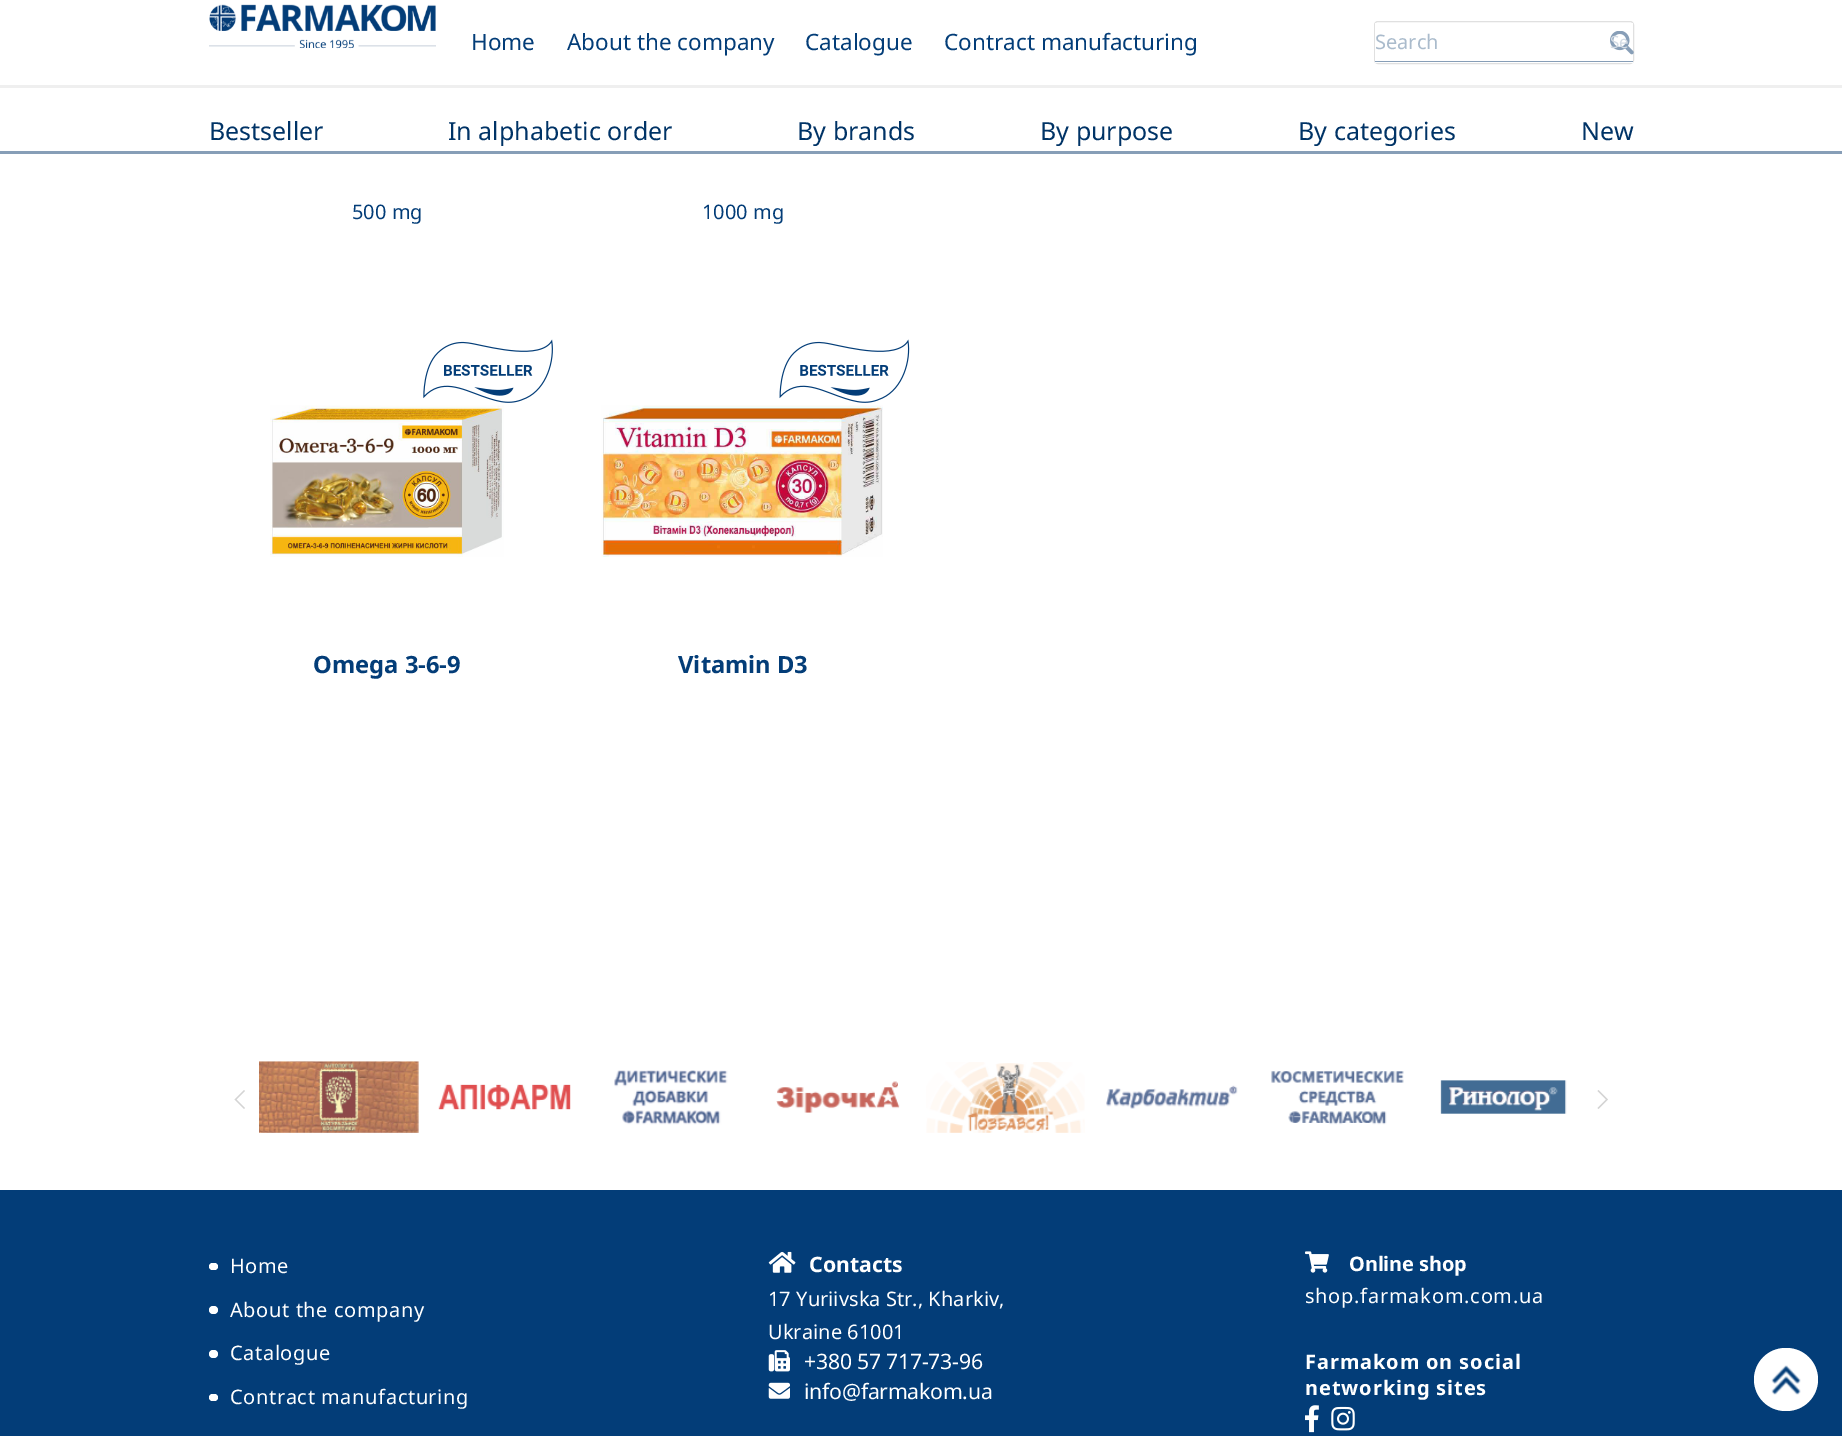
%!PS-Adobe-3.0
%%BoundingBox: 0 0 1842 1436
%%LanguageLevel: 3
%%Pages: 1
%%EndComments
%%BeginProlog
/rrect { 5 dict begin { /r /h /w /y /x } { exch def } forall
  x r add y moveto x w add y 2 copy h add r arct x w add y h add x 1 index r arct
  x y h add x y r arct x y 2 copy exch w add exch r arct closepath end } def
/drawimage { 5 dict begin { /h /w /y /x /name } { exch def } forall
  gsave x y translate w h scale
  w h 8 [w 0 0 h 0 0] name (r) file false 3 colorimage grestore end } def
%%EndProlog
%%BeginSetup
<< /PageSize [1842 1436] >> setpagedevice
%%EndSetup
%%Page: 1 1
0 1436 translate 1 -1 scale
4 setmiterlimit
1 setgray
0 0 1842 1436 rectfill
0.937 setgray
0 85 1842 3 rectfill
(images/1.raw) 209 4 227 45 drawimage
0.878 setgray
1374.5 21.5 259 42 3.5 rrect stroke
1 setgray
1375 23 258 40 rectfill
0.529 0.62 0.718 setrgbcolor
1375 61 258 1 rectfill
(images/2.raw) 1610 31 24 24 drawimage
0 151 1842 3 rectfill
(images/3.raw) 423 339 130 64 drawimage
(images/4.raw) 270 405 234 152 drawimage
(images/5.raw) 779 339 131 64 drawimage
(images/6.raw) 601 405 282 152 drawimage
(images/7.raw) 259 1061 160 72 drawimage
(images/8.raw) 438 1084 133 26 drawimage
(images/9.raw) 614 1070 114 55 drawimage
(images/10.raw) 776 1081 124 32 drawimage
(images/11.raw) 926 1062 159 71 drawimage
(images/12.raw) 1106 1085 132 24 drawimage
(images/13.raw) 1271 1071 133 54 drawimage
(images/14.raw) 1440 1080 127 34 drawimage
gsave
newpath 242.5 1089.5 moveto 237.5 1089.5 lineto 235.5 1089.5 234 1091.5 234 1093.5 curveto 234 1104.5 lineto 234 1107 235.5 1108.5 237.5 1108.5 curveto 242.5 1108.5 lineto 244.5 1108.5 246 1107 246 1104.5 curveto 246 1093.5 lineto 246 1091.5 244.5 1089.5 242.5 1089.5 curveto closepath clip newpath
0.831 setgray
1.4 setlinewidth
newpath 244.5 1108.5 moveto 235.5 1099.5 lineto 244.5 1090.5 lineto stroke
grestore
gsave
1596 1090 13 19 4 rrect clip newpath
0.831 setgray
1.4 setlinewidth
newpath 1598 1108.5 moveto 1607 1099.5 lineto 1598 1090.5 lineto stroke
grestore
0.012 0.239 0.471 setrgbcolor
0 1190 1842 246 rectfill
1 setgray
209 1263 9 7 3.5 rrect fill
209 1306 9 8 4 rrect fill
209 1350 9 8 4 rrect fill
209 1394 9 7 3.5 rrect fill
(images/15.raw) 768 1251 28 22 drawimage
(images/16.raw) 768 1350 22 22 drawimage
(images/17.raw) 768 1382 22 17 drawimage
(images/18.raw) 1305 1251 24 22 drawimage
(images/19.raw) 1305 1405 14 28 drawimage
(images/20.raw) 1331 1406 24 25 drawimage
1754 1348 64 63 31.5 rrect fill
(images/21.raw) 1771 1365 30 30 drawimage
/NotoSans-Regular [22.5 0 0 -22.5 0 0] selectfont
0.012 0.239 0.471 setrgbcolor
471 50 moveto (Home) show
567 50 moveto (About the company) show
805 50 moveto (Catalogue) show
944 50 moveto (Contract manufacturing) show
/NotoSans-Regular [20 0 0 -20 0 0] selectfont
0.667 0.733 0.8 setrgbcolor
1375 49 moveto (Search) show
/NotoSans-Regular [17 0 0 -17 0 0] selectfont
0.827 0.859 0.894 setrgbcolor
1610 48 moveto (Se) show
/NotoSans-Regular [25 0 0 -25 0 0] selectfont
0 0.2 0.4 setrgbcolor
209 140 moveto (Bestseller) show
448 140 moveto (In alphabetic order) show
797 140 moveto (By brands) show
1040 140 moveto (By purpose) show
1298 140 moveto (By categories) show
1581 140 moveto (New) show
/NotoSans-Regular [20 0 0 -20 0 0] selectfont
0.012 0.239 0.471 setrgbcolor
352 219 moveto (500 mg) show
702 219 moveto (1000 mg) show
/NotoSans-Bold [23.75 0 0 -23.75 0 0] selectfont
313 673 moveto (Omega 3-6-9) show
678 673 moveto (Vitamin D3) show
/NotoSans-Regular [20 0 0 -20 0 0] selectfont
1 setgray
230 1273 moveto 0.6 0 (Home) ashow
230 1317 moveto 0.6 0 (About the company) ashow
230 1360 moveto 0.6 0 (Catalogue) ashow
230 1404 moveto 0.6 0 (Contract manufacturing) ashow
/NotoSans-Bold [21.25 0 0 -21.25 0 0] selectfont
809 1272 moveto (Contacts) show
/NotoSans-Regular [20 0 0 -20 0 0] selectfont
768 1306 moveto 0.05 0 (17 Yuriivska Str., Kharkiv,) ashow
768 1339 moveto 0.05 0 (Ukraine 61001) ashow
/NotoSans-Regular [21.25 0 0 -21.25 0 0] selectfont
804 1369 moveto -0.25 0 (+380 57 717-73-96) ashow
804 1399 moveto -0.25 0 (info@farmakom.ua) ashow
/NotoSans-Bold [20 0 0 -20 0 0] selectfont
1349 1271 moveto -0.1 0 (Online shop) ashow
/NotoSans-Regular [20 0 0 -20 0 0] selectfont
1305 1303 moveto 0.75 0 (shop.farmakom.com.ua) ashow
/NotoSans-Bold [20 0 0 -20 0 0] selectfont
1305 1369 moveto 0.9 0 (Farmakom on social) ashow
1305 1395 moveto 0.9 0 (networking sites) ashow
showpage
%%EOF
